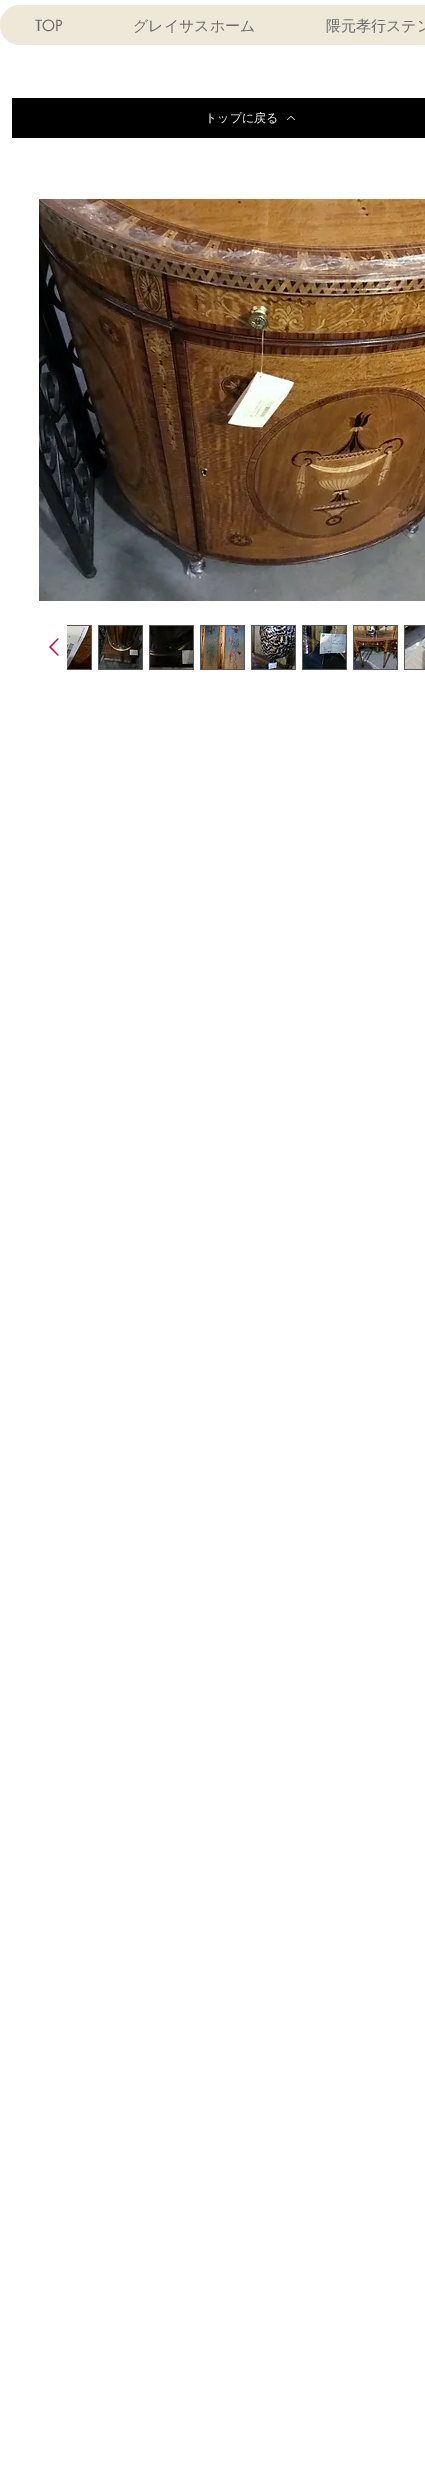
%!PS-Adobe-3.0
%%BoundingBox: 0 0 425 2472
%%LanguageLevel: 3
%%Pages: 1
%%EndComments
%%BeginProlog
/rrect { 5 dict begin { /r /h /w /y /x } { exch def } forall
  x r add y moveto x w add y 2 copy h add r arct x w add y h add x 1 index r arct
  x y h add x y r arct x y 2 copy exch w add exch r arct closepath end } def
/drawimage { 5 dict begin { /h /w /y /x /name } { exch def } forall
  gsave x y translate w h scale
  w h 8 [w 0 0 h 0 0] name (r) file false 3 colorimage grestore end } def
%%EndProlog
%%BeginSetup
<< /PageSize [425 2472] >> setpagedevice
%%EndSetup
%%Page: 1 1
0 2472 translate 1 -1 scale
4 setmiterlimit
1 setgray
0 0 425 2472 rectfill
0.933 0.91 0.847 setrgbcolor
0 5 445 40 20 rrect fill
0 setgray
12 98 413 40 rectfill
(images/1.raw) 287 116 8 5 drawimage
(images/2.raw) 39 199 386 402 drawimage
0.792 0.027 0.275 setrgbcolor
newpath 58 638 moveto 58.5 639 lineto 51 647 lineto 58.5 655 lineto 58 656 lineto 49 647 lineto closepath eofill
0.341 setgray
67 625 25 45 rectfill
(images/3.raw) 67 626 24 43 drawimage
98 625 45 45 rectfill
(images/4.raw) 99 626 43 43 drawimage
149 625 45 45 rectfill
(images/5.raw) 150 626 43 43 drawimage
200 625 45 45 rectfill
(images/6.raw) 201 626 43 43 drawimage
251 625 45 45 rectfill
(images/7.raw) 252 626 43 43 drawimage
302 625 45 45 rectfill
(images/8.raw) 303 626 43 43 drawimage
353 625 45 45 rectfill
(images/9.raw) 354 626 43 43 drawimage
404 625 21 45 rectfill
(images/10.raw) 405 626 20 43 drawimage
/futura-Regular [15 0 0 -15 0 0] selectfont
0.412 setgray
35 31 moveto (TOP) show
/WenQuanYiZenHei-Medium [15 0 0 -15 0 0] selectfont
133 31 moveto (グレイサスホーム) show
326 31 moveto (隈元孝行ステン) show
/WenQuanYiZenHei-Medium [12 0 0 -12 0 0] selectfont
1 setgray
205 122 moveto (トップに戻る) show
showpage
%%EOF
